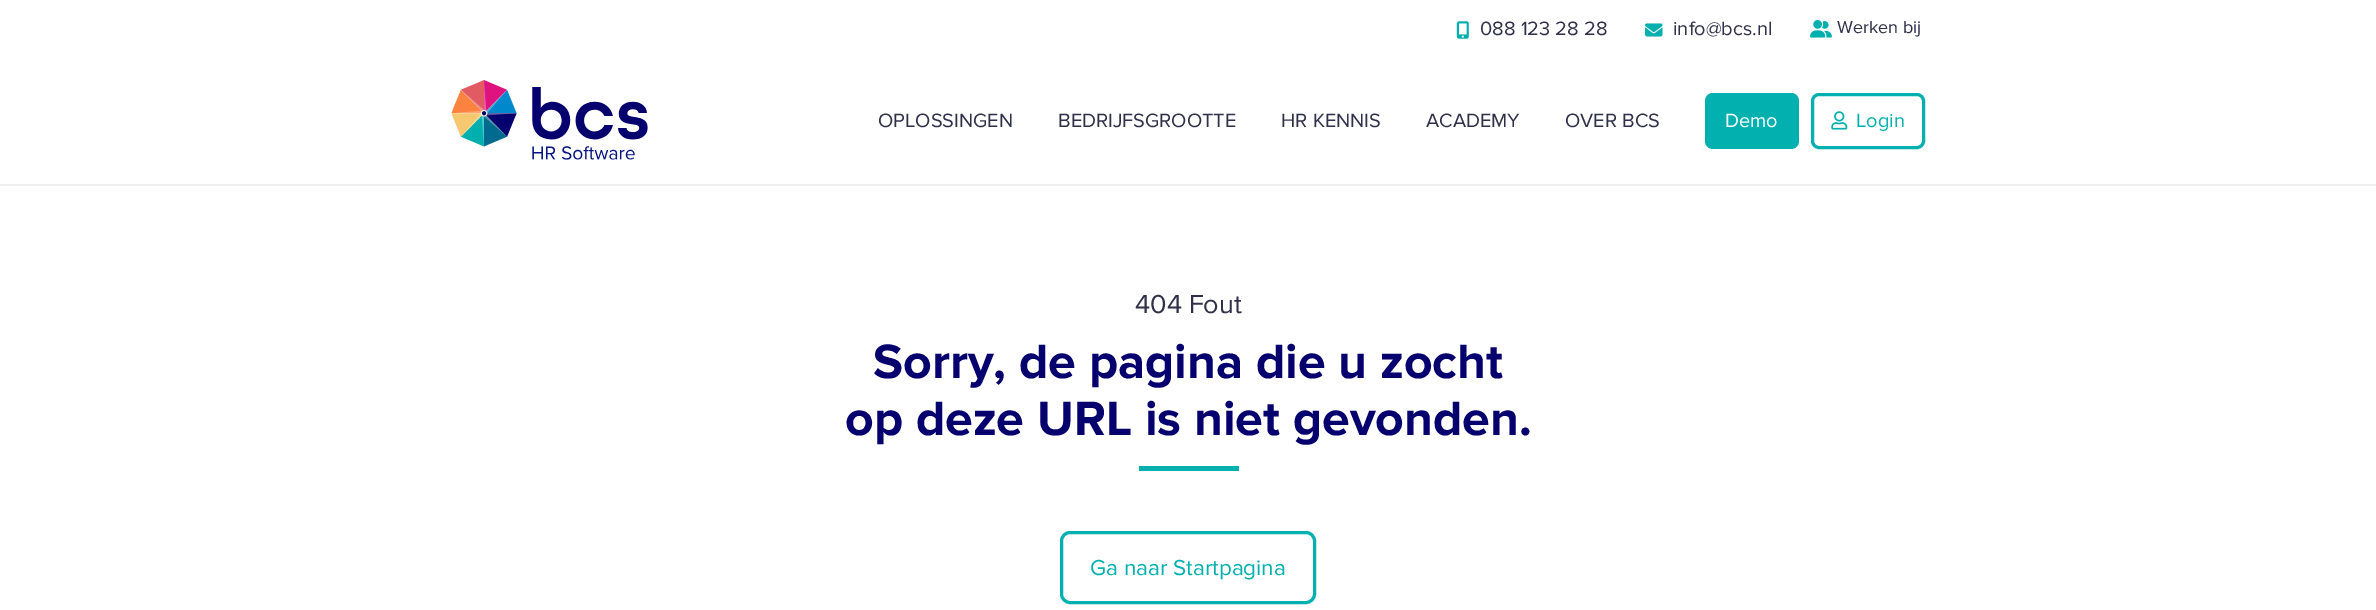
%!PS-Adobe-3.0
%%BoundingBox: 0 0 2376 610
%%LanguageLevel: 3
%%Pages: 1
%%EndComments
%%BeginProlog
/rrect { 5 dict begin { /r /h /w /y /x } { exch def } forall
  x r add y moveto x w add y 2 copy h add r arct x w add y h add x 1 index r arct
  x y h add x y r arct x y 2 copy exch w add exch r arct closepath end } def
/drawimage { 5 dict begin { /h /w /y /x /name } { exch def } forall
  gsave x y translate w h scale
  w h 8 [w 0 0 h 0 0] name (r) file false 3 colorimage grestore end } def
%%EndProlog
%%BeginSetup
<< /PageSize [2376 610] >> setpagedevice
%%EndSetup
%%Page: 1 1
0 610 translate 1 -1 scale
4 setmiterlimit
1 setgray
0 0 2376 610 rectfill
0.937 setgray
0 184 2376 2 rectfill
(images/1.raw) 1456 21 13 18 drawimage
(images/2.raw) 1645 23 18 14 drawimage
(images/3.raw) 1810 20 22 18 drawimage
(images/4.raw) 451 80 197 80 drawimage
0.012 0.69 0.69 setrgbcolor
1705 93 94 56 8 rrect fill
3 setlinewidth
1812.5 94.5 111 53 6.5 rrect stroke
(images/5.raw) 1831 111 17 19 drawimage
1139 466 100 5 rectfill
1061.5 532.5 253 70 8.5 rrect stroke
/ProximaNova-Regular [20 0 0 -20 0 0] selectfont
0.188 0.188 0.294 setrgbcolor
1480 35 moveto (088 123 28 28) show
1673 35 moveto (info@bcs.nl) show
/ProximaNova-Regular [18 0 0 -18 0 0] selectfont
1837 33 moveto (Werken bij) show
/ProximaNova-Regular [20 0 0 -20 0 0] selectfont
878 127 moveto (OPLOSSINGEN) show
1058 127 moveto (BEDRIJFSGROOTTE) show
1281 127 moveto (HR KENNIS) show
1426 127 moveto (ACADEMY) show
1565 127 moveto (OVER BCS) show
1 setgray
1725 127 moveto (Demo) show
0.012 0.69 0.69 setrgbcolor
1856 127 moveto (Login) show
/ProximaNova-Regular [27 0 0 -27 0 0] selectfont
0.188 0.188 0.294 setrgbcolor
1135 313 moveto (404 Fout) show
/ProximaNova-Bold [50 0 0 -50 0 0] selectfont
0.02 0 0.431 setrgbcolor
873 378 moveto (Sorry, de pagina die u zocht) show
845 435 moveto (op deze URL is niet gevonden.) show
/ProximaNova-Regular [22.5 0 0 -22.5 0 0] selectfont
0.012 0.69 0.69 setrgbcolor
1090 575 moveto (Ga naar Startpagina) show
showpage
%%EOF
